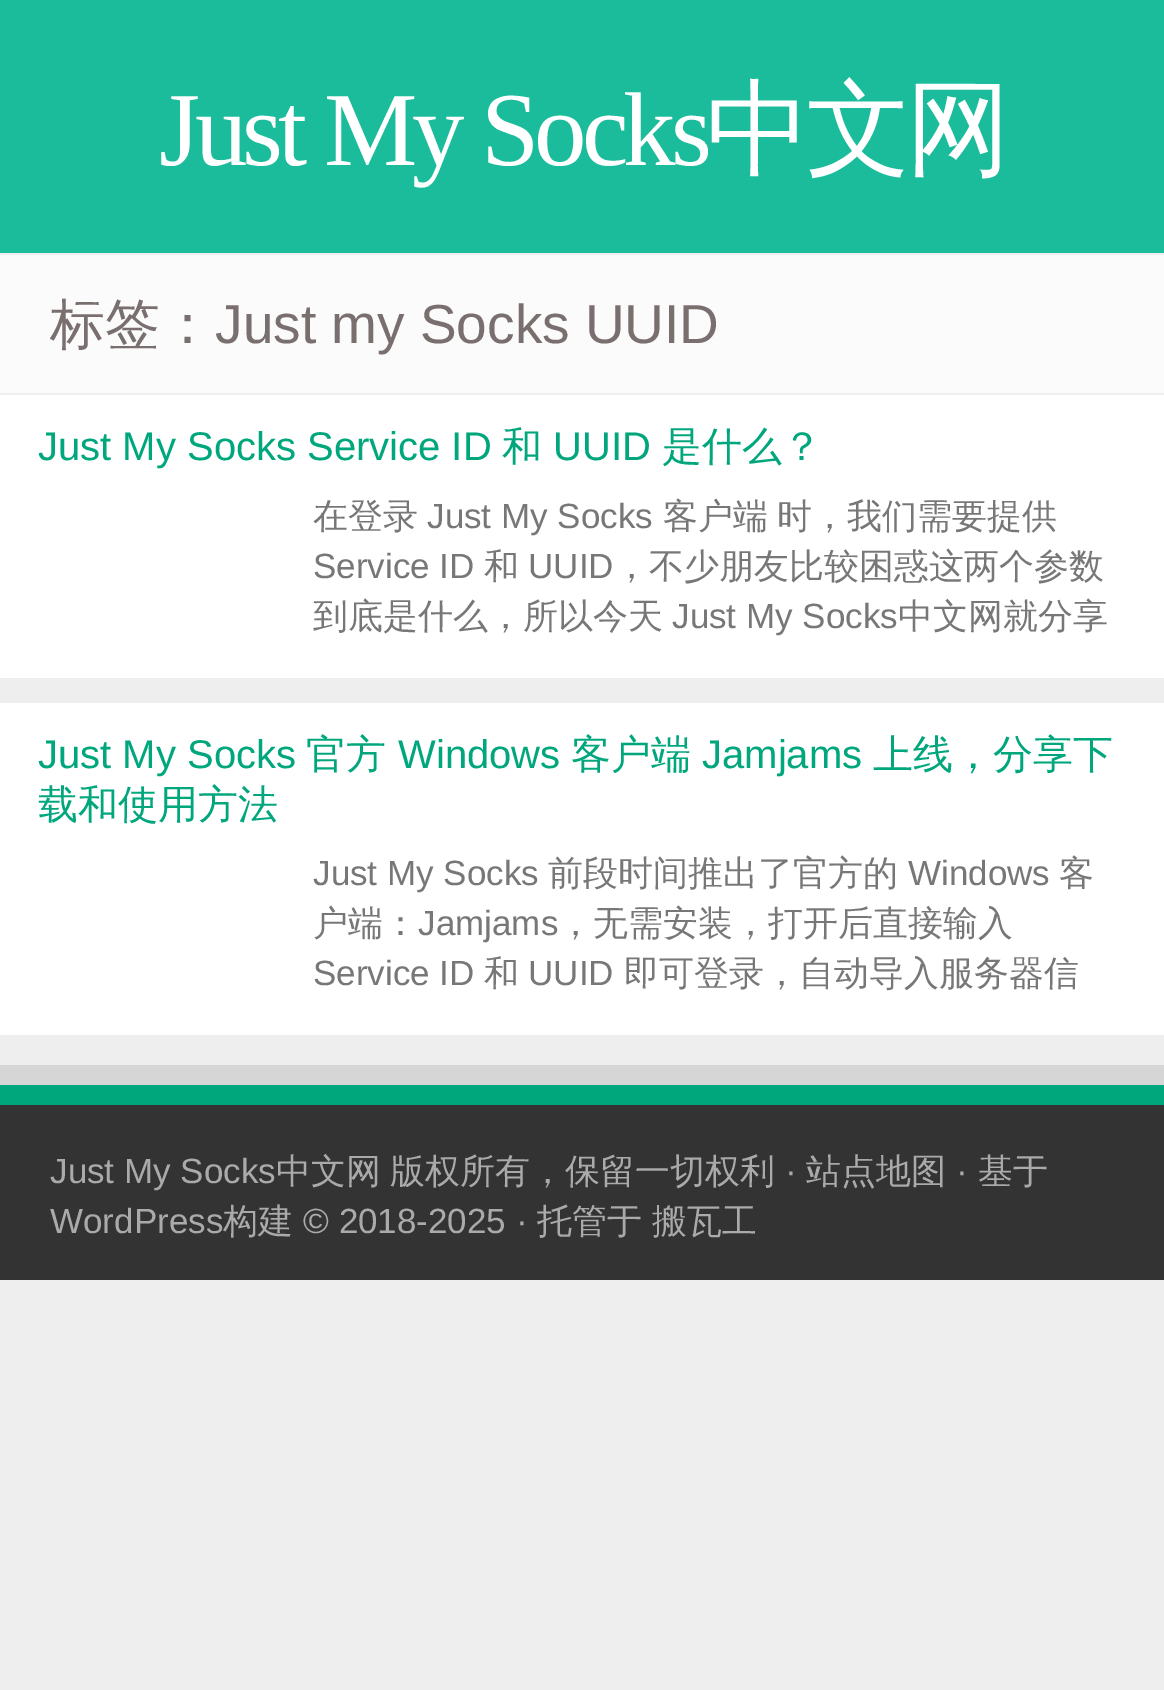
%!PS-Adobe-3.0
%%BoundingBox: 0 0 1164 1690
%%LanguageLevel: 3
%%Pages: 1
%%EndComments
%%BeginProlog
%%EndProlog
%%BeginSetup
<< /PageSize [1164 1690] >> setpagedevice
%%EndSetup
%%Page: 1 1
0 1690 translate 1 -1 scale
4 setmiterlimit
0.933 setgray
0 0 1164 1690 rectfill
0.102 0.737 0.612 setrgbcolor
0 0 1164 253 rectfill
0.984 setgray
0 255 1164 138 rectfill
1 setgray
0 395 1164 283 rectfill
0 703 1164 332 rectfill
0.839 setgray
0 1065 1164 20 rectfill
0.2 setgray
0 1105 1164 175 rectfill
0 0.651 0.486 setrgbcolor
0 1085 1164 20 rectfill
/LiberationSerif-Regular [105 0 0 -105 0 0] selectfont
1 setgray
159 165 moveto -5 0 (Just My Socks) ashow
/WenQuanYiZenHei-Medium [105 0 0 -105 0 0] selectfont
706 165 moveto -5 0 (中文网) ashow
/WenQuanYiZenHei-Medium [55 0 0 -55 0 0] selectfont
0.478 0.435 0.435 setrgbcolor
50 343 moveto (标签：) show
/LiberationSans-Regular [55 0 0 -55 0 0] selectfont
215 343 moveto (Just my Socks UUID) show
/LiberationSans-Regular [40 0 0 -40 0 0] selectfont
0 0.651 0.486 setrgbcolor
38 460 moveto (Just My Socks Service ID) show
/WenQuanYiZenHei-Medium [40 0 0 -40 0 0] selectfont
502 460 moveto (和) show
/LiberationSans-Regular [40 0 0 -40 0 0] selectfont
553 460 moveto (UUID) show
/WenQuanYiZenHei-Medium [40 0 0 -40 0 0] selectfont
662 460 moveto (是什么？) show
/WenQuanYiZenHei-Medium [35 0 0 -35 0 0] selectfont
0.467 setgray
313 528 moveto (在登录) show
/LiberationSans-Regular [35 0 0 -35 0 0] selectfont
427 528 moveto (Just My Socks) show
/WenQuanYiZenHei-Medium [35 0 0 -35 0 0] selectfont
663 528 moveto (客户端) show
777 528 moveto (时，我们需要提供) show
/LiberationSans-Regular [35 0 0 -35 0 0] selectfont
313 578 moveto (Service ID) show
/WenQuanYiZenHei-Medium [35 0 0 -35 0 0] selectfont
484 578 moveto (和) show
/LiberationSans-Regular [35 0 0 -35 0 0] selectfont
528 578 moveto (UUID) show
/WenQuanYiZenHei-Medium [35 0 0 -35 0 0] selectfont
614 578 moveto (，不少朋友比较困惑这两个参数) show
313 628 moveto (到底是什么，所以今天) show
/LiberationSans-Regular [35 0 0 -35 0 0] selectfont
672 628 moveto (Just My Socks) show
/WenQuanYiZenHei-Medium [35 0 0 -35 0 0] selectfont
898 628 moveto (中文网就分享) show
/LiberationSans-Regular [40 0 0 -40 0 0] selectfont
0 0.651 0.486 setrgbcolor
38 768 moveto (Just My Socks) show
/WenQuanYiZenHei-Medium [40 0 0 -40 0 0] selectfont
306 768 moveto (官方) show
/LiberationSans-Regular [40 0 0 -40 0 0] selectfont
398 768 moveto (Windows) show
/WenQuanYiZenHei-Medium [40 0 0 -40 0 0] selectfont
571 768 moveto (客户端) show
/LiberationSans-Regular [40 0 0 -40 0 0] selectfont
702 768 moveto (Jamjams) show
/WenQuanYiZenHei-Medium [40 0 0 -40 0 0] selectfont
873 768 moveto (上线，分享下) show
38 818 moveto (载和使用方法) show
/LiberationSans-Regular [35 0 0 -35 0 0] selectfont
0.467 setgray
313 885 moveto (Just My Socks) show
/WenQuanYiZenHei-Medium [35 0 0 -35 0 0] selectfont
548 885 moveto (前段时间推出了官方的) show
/LiberationSans-Regular [35 0 0 -35 0 0] selectfont
908 885 moveto (Windows) show
/WenQuanYiZenHei-Medium [35 0 0 -35 0 0] selectfont
1059 885 moveto (客) show
313 935 moveto (户端：) show
/LiberationSans-Regular [35 0 0 -35 0 0] selectfont
418 935 moveto (Jamjams) show
/WenQuanYiZenHei-Medium [35 0 0 -35 0 0] selectfont
558 935 moveto (，无需安装，打开后直接输入) show
/LiberationSans-Regular [35 0 0 -35 0 0] selectfont
313 985 moveto (Service ID) show
/WenQuanYiZenHei-Medium [35 0 0 -35 0 0] selectfont
484 985 moveto (和) show
/LiberationSans-Regular [35 0 0 -35 0 0] selectfont
528 985 moveto (UUID) show
/WenQuanYiZenHei-Medium [35 0 0 -35 0 0] selectfont
624 985 moveto (即可登录，自动导入服务器信) show
/LiberationSans-Regular [35 0 0 -35 0 0] selectfont
0.667 setgray
50 1183 moveto (Just My Socks) show
/WenQuanYiZenHei-Medium [35 0 0 -35 0 0] selectfont
276 1183 moveto (中文网) show
390 1183 moveto (版权所有，保留一切权利) show
/LiberationSans-Regular [35 0 0 -35 0 0] selectfont
785 1183 moveto (·) show
/WenQuanYiZenHei-Medium [35 0 0 -35 0 0] selectfont
806 1183 moveto (站点地图) show
/LiberationSans-Regular [35 0 0 -35 0 0] selectfont
956 1183 moveto (·) show
/WenQuanYiZenHei-Medium [35 0 0 -35 0 0] selectfont
978 1183 moveto (基于) show
/LiberationSans-Regular [35 0 0 -35 0 0] selectfont
50 1233 moveto (WordPress) show
/WenQuanYiZenHei-Medium [35 0 0 -35 0 0] selectfont
223 1233 moveto (构建) show
/LiberationSans-Regular [35 0 0 -35 0 0] selectfont
303 1233 moveto (© 2018-2025 ·) show
/WenQuanYiZenHei-Medium [35 0 0 -35 0 0] selectfont
537 1233 moveto (托管于) show
652 1233 moveto (搬瓦工) show
showpage
%%EOF
